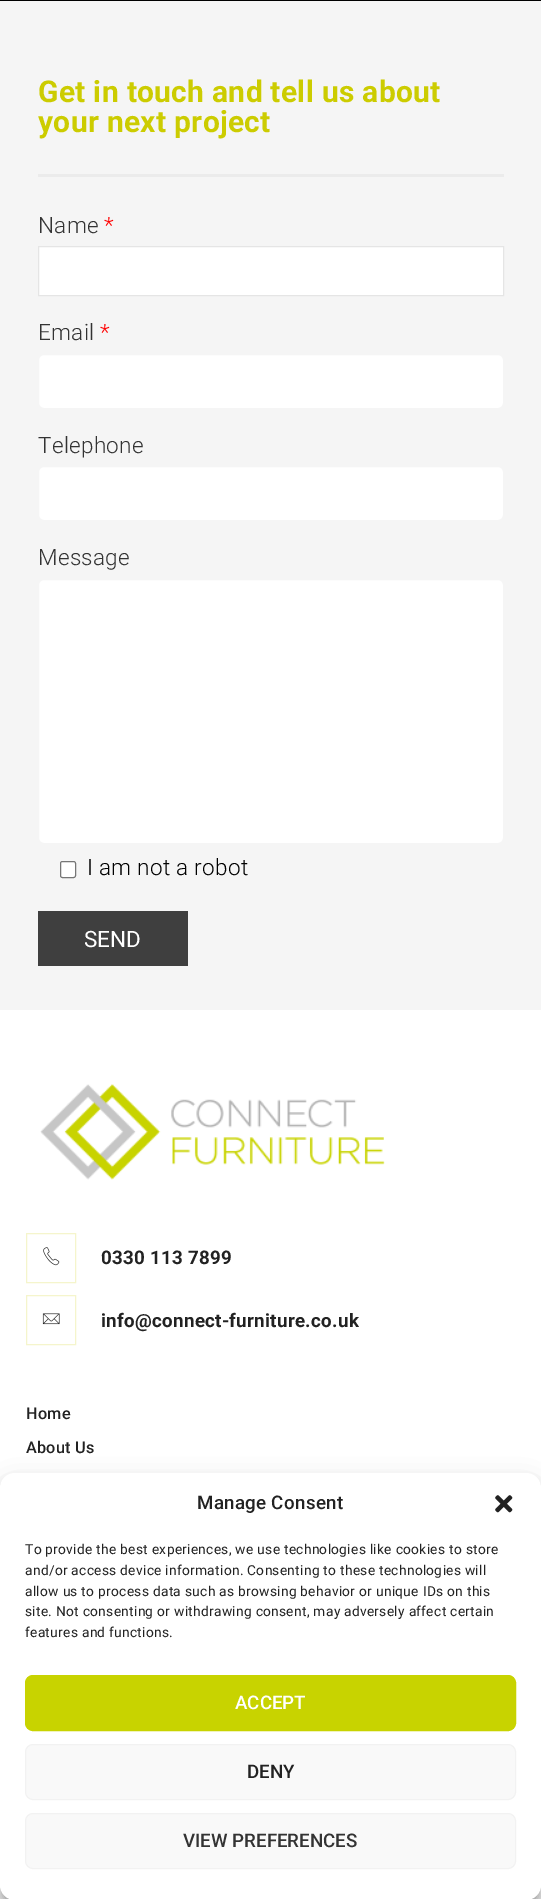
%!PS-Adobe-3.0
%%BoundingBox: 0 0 541 1899
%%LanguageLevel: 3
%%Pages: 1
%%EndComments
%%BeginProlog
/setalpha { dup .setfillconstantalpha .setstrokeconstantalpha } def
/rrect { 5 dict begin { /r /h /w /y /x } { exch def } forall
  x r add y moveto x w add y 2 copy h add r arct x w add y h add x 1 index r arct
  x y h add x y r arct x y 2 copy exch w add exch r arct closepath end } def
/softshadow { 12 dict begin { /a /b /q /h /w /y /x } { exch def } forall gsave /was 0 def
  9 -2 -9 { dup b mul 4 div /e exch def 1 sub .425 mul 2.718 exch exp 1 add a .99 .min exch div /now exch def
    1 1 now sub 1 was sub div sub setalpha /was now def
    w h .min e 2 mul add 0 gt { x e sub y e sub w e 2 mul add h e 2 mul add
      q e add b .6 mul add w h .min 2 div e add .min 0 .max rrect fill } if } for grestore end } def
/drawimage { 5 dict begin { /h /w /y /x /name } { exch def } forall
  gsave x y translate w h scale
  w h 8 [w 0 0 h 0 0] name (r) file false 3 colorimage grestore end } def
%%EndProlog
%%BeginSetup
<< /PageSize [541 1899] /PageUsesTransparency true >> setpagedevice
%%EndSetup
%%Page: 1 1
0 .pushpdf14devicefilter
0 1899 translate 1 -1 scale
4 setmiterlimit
0 setgray
0 0 541 1899 rectfill
0.961 setgray
0 1 541 1009 rectfill
0.922 setgray
38 174 466 3 rectfill
1 setgray
newpath 38.5 246.5 moveto 503.5 246.5 lineto 503.5 295.5 lineto 38.5 295.5 lineto closepath gsave fill grestore
0.898 setgray
stroke
1 setgray
38.5 354.5 465 54 5.5 rrect gsave fill grestore
0.961 setgray
stroke
1 setgray
38.5 466.5 465 54 5.5 rrect gsave fill grestore
0.961 setgray
stroke
1 setgray
38.5 579.5 465 264 5.5 rrect gsave fill grestore
0.961 setgray
stroke
1 setgray
60.5 861.5 15 16 2 rrect gsave fill grestore
0.463 setgray
stroke
0.247 setgray
38 911 150 55 rectfill
1 setgray
0 1010 541 889 rectfill
(images/1.raw) 40 1084 345 96 drawimage
(images/2.raw) 43 1247 17 19 drawimage
0.961 0.961 0.8 setrgbcolor
26.5 1233.5 49 49 rectstroke
(images/3.raw) 42 1313 18 12 drawimage
26.5 1295.5 49 49 rectstroke
0 setgray
0 1480 541 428 15 4 0.23 softshadow
0 1485 541 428 15 12.5 0.19 softshadow
1 setgray
0 1473 541 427 15 rrect fill
(images/4.raw) 495 1495 18 18 drawimage
0.784 0.827 0 setrgbcolor
25.5 1675.5 490 55 7.5 rrect gsave fill grestore
stroke
0.976 setgray
25.5 1744.5 490 55 7.5 rrect gsave fill grestore
0.949 setgray
stroke
0.976 setgray
25.5 1813.5 490 55 7.5 rrect gsave fill grestore
0.949 setgray
stroke
/Roboto-Bold [30 0 0 -30 0 0] selectfont
0.8 0.8 0 setrgbcolor
38 102 moveto 0.3 0 (Get in touch and tell us about) ashow
38 132 moveto 0.3 0 (your next project) ashow
/Roboto-Light [22.5 0 0 -22.5 0 0] selectfont
0.2 setgray
38 233 moveto 0.3 0 (Name) ashow
1 0 0 setrgbcolor
104 233 moveto 0.3 0 (*) ashow
0.2 setgray
38 340 moveto 0.3 0 (Email) ashow
1 0 0 setrgbcolor
100 340 moveto 0.3 0 (*) ashow
0.2 setgray
38 453 moveto 0.3 0 (Telephone) ashow
38 565 moveto 0.3 0 (Message) ashow
0 setgray
87 875 moveto 0.3 0 (I am not a robot) ashow
/Roboto-Regular [22.5 0 0 -22.5 0 0] selectfont
1 setgray
84 947 moveto (SEND) show
/Roboto-Bold [18.75 0 0 -18.75 0 0] selectfont
0.133 setgray
101 1264 moveto 0.3 0 (0330 113 7899) ashow
101 1327 moveto 0.3 0 (info@connect-furniture.co.uk) ashow
/Roboto-Medium [16.25 0 0 -16.25 0 0] selectfont
26 1419 moveto 0.3 0 (Home) ashow
26 1453 moveto 0.3 0 (About Us) ashow
/Roboto-Medium [18.75 0 0 -18.75 0 0] selectfont
197 1509 moveto 0.3 0 (Manage Consent) ashow
/Roboto-Regular [13.75 0 0 -13.75 0 0] selectfont
25 1554 moveto 0.3 0 (To provide the best experiences, we use technologies like cookies to store) ashow
25 1575 moveto 0.3 0 (and/or access device information. Consenting to these technologies will) ashow
25 1596 moveto 0.3 0 (allow us to process data such as browsing behavior or unique IDs on this) ashow
25 1616 moveto 0.3 0 (site. Not consenting or withdrawing consent, may adversely affect certain) ashow
25 1637 moveto 0.3 0 (features and functions.) ashow
/Roboto-Medium [18.75 0 0 -18.75 0 0] selectfont
1 setgray
235 1709 moveto (ACCEPT) show
0.133 setgray
247 1778 moveto (DENY) show
0.2 setgray
183 1847 moveto (VIEW PREFERENCES) show
.poppdf14devicefilter showpage
%%EOF
